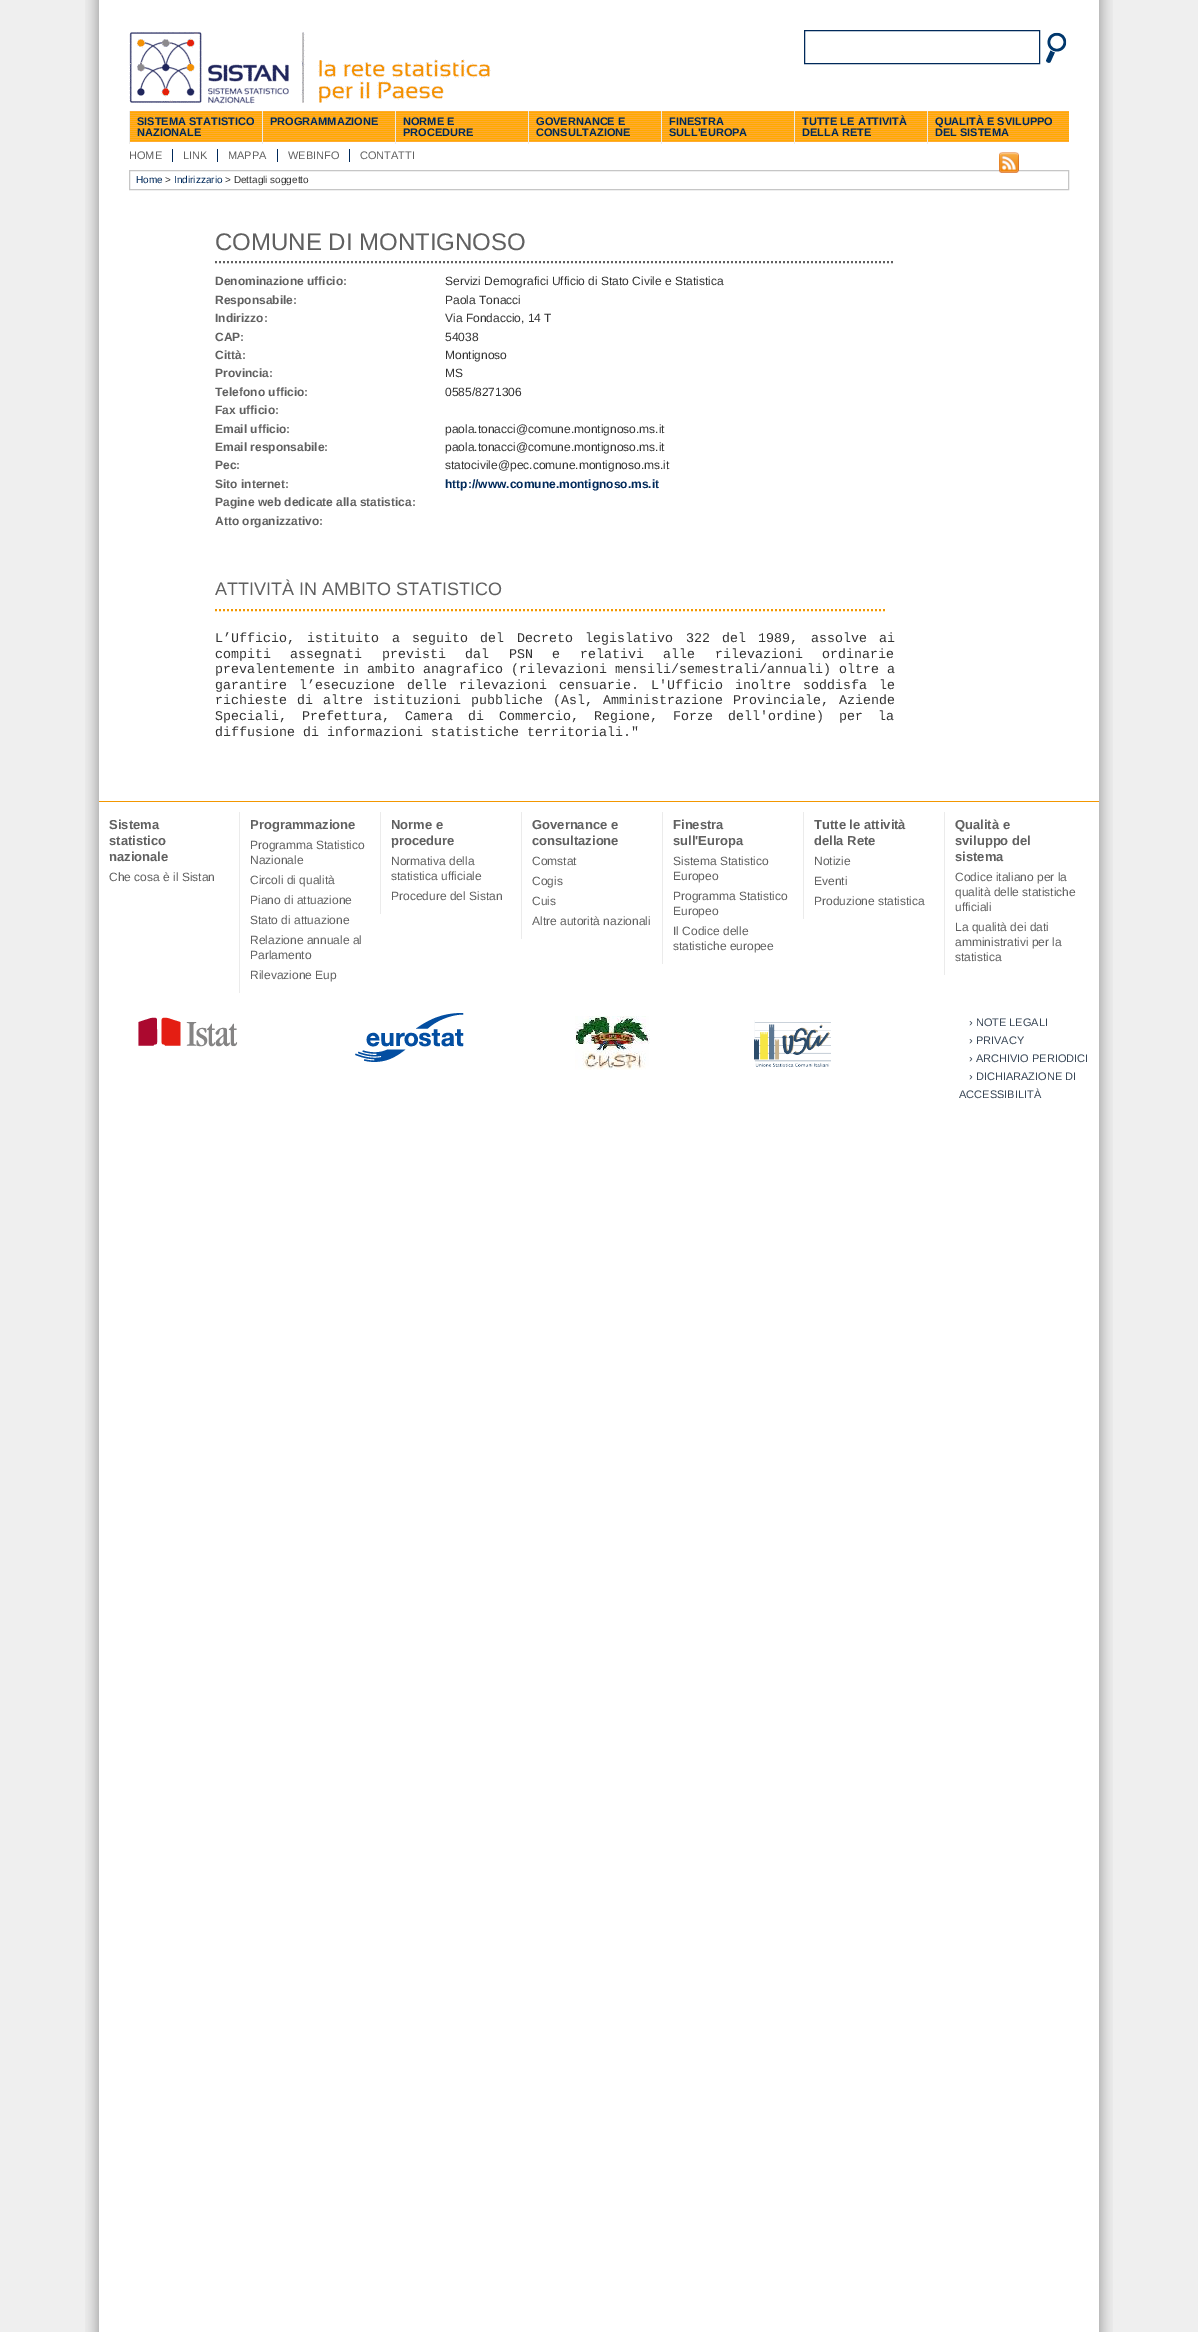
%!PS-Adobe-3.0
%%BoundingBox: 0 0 1198 2332
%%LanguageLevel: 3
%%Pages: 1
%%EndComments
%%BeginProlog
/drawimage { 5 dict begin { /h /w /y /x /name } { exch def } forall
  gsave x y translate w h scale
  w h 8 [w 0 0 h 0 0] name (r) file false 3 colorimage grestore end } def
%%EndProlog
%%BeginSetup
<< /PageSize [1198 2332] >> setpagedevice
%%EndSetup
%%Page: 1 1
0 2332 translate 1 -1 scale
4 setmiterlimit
0.937 setgray
0 0 1198 2332 rectfill
(images/1.raw) 85 0 1028 2332 drawimage
(images/2.raw) 129 32 362 72 drawimage
0 0.161 0.353 setrgbcolor
804.5 30.5 235 33 rectstroke
(images/3.raw) 1046 32 21 31 drawimage
(images/4.raw) 129 106 940 36 drawimage
0.922 setgray
129 111 1 33 rectfill
262 111 1 33 rectfill
395 111 1 33 rectfill
528 111 1 33 rectfill
661 111 1 33 rectfill
794 111 1 33 rectfill
927 111 1 33 rectfill
0 0.161 0.353 setrgbcolor
172 149 1 13 rectfill
217 149 1 13 rectfill
277 149 1 13 rectfill
349 149 1 13 rectfill
0.776 setgray
129.5 170.5 939 19 rectstroke
(images/5.raw) 999 152 20 21 drawimage
0.376 setgray
2 setlinewidth
[2 2] 0 setdash
newpath 215 262 moveto 895 262 lineto stroke
0.953 0.592 0 setrgbcolor
newpath 215 610 moveto 885 610 lineto stroke
99 801 1000 1 rectfill
0.922 setgray
239 812 1 181 rectfill
380 812 1 102 rectfill
521 812 1 127 rectfill
662 812 1 152 rectfill
803 812 1 107 rectfill
944 812 1 163 rectfill
(images/6.raw) 138 1017 100 30 drawimage
(images/7.raw) 355 1013 109 49 drawimage
(images/8.raw) 575 1016 75 54 drawimage
(images/9.raw) 754 1020 77 47 drawimage
/LiberationSans-Bold [11 0 0 -11 0 0] selectfont
0 0.161 0.353 setrgbcolor
137 125 moveto (SISTEMA STATISTICO) show
137 136 moveto (NAZIONALE) show
270 125 moveto (PROGRAMMAZIONE) show
403 125 moveto (NORME E) show
403 136 moveto (PROCEDURE) show
536 125 moveto (GOVERNANCE E) show
536 136 moveto (CONSULTAZIONE) show
669 125 moveto (FINESTRA) show
669 136 moveto (SULL'EUROPA) show
802 125 moveto (TUTTE LE ATTIVITÀ) show
802 136 moveto (DELLA RETE) show
935 125 moveto (QUALITÀ E SVILUPPO) show
935 136 moveto (DEL SISTEMA) show
/LiberationSans-Regular [11 0 0 -11 0 0] selectfont
0.376 setgray
129 159 moveto (HOME) show
183 159 moveto (LINK) show
228 159 moveto (MAPPA) show
288 159 moveto (WEBINFO) show
360 159 moveto (CONTATTI) show
/LiberationSans-Regular [10 0 0 -10 0 0] selectfont
0 0.161 0.353 setrgbcolor
136 183 moveto (Home) show
0.2 setgray
165 183 moveto (>) show
0 0.161 0.353 setrgbcolor
174 183 moveto (Indirizzario) show
0.2 setgray
225 183 moveto (> Dettagli soggetto) show
/LiberationSans-Regular [24 0 0 -24 0 0] selectfont
0.376 setgray
215 250 moveto (COMUNE DI MONTIGNOSO) show
/LiberationSans-Bold [12 0 0 -12 0 0] selectfont
215 285 moveto (Denominazione ufficio:) show
/LiberationSans-Regular [12 0 0 -12 0 0] selectfont
0.2 setgray
445 285 moveto (Servizi Demografici Ufficio di Stato Civile e Statistica) show
/LiberationSans-Bold [12 0 0 -12 0 0] selectfont
0.376 setgray
215 304 moveto (Responsabile:) show
/LiberationSans-Regular [12 0 0 -12 0 0] selectfont
0.2 setgray
445 304 moveto (Paola Tonacci) show
/LiberationSans-Bold [12 0 0 -12 0 0] selectfont
0.376 setgray
215 322 moveto (Indirizzo:) show
/LiberationSans-Regular [12 0 0 -12 0 0] selectfont
0.2 setgray
445 322 moveto (Via Fondaccio, 14 T) show
/LiberationSans-Bold [12 0 0 -12 0 0] selectfont
0.376 setgray
215 341 moveto (CAP:) show
/LiberationSans-Regular [12 0 0 -12 0 0] selectfont
0.2 setgray
445 341 moveto (54038) show
/LiberationSans-Bold [12 0 0 -12 0 0] selectfont
0.376 setgray
215 359 moveto (Città:) show
/LiberationSans-Regular [12 0 0 -12 0 0] selectfont
0.2 setgray
445 359 moveto (Montignoso) show
/LiberationSans-Bold [12 0 0 -12 0 0] selectfont
0.376 setgray
215 377 moveto (Provincia:) show
/LiberationSans-Regular [12 0 0 -12 0 0] selectfont
0.2 setgray
445 377 moveto (MS) show
/LiberationSans-Bold [12 0 0 -12 0 0] selectfont
0.376 setgray
215 396 moveto (Telefono ufficio:) show
/LiberationSans-Regular [12 0 0 -12 0 0] selectfont
0.2 setgray
445 396 moveto (0585/8271306) show
/LiberationSans-Bold [12 0 0 -12 0 0] selectfont
0.376 setgray
215 414 moveto (Fax ufficio:) show
215 433 moveto (Email ufficio:) show
/LiberationSans-Regular [12 0 0 -12 0 0] selectfont
0.2 setgray
445 433 moveto (paola.tonacci@comune.montignoso.ms.it) show
/LiberationSans-Bold [12 0 0 -12 0 0] selectfont
0.376 setgray
215 451 moveto (Email responsabile:) show
/LiberationSans-Regular [12 0 0 -12 0 0] selectfont
0.2 setgray
445 451 moveto (paola.tonacci@comune.montignoso.ms.it) show
/LiberationSans-Bold [12 0 0 -12 0 0] selectfont
0.376 setgray
215 469 moveto (Pec:) show
/LiberationSans-Regular [12 0 0 -12 0 0] selectfont
0.2 setgray
445 469 moveto (statocivile@pec.comune.montignoso.ms.it) show
/LiberationSans-Bold [12 0 0 -12 0 0] selectfont
0.376 setgray
215 488 moveto (Sito internet:) show
0 0.161 0.353 setrgbcolor
445 488 moveto (http://www.comune.montignoso.ms.it) show
0.376 setgray
215 506 moveto (Pagine web dedicate alla statistica:) show
215 525 moveto (Atto organizzativo:) show
/LiberationSans-Regular [18 0 0 -18 0 0] selectfont
215 595 moveto (ATTIVITÀ IN AMBITO STATISTICO) show
/LiberationMono-Regular [13.33 0 0 -13.33 0 0] selectfont
0.2 setgray
215 642 moveto 4.4 0 32 (L’Ufficio, istituito a seguito del Decreto legislativo 322 del 1989, assolve ai) widthshow
215 658 moveto 11.5 0 32 (compiti assegnati previsti dal PSN e relativi alle rilevazioni ordinarie) widthshow
215 673 moveto (prevalentemente in ambito anagrafico \(rilevazioni mensili/semestrali/annuali\) oltre a) show
215 689 moveto 4 0 32 (garantire l’esecuzione delle rilevazioni censuarie. L'Ufficio inoltre soddisfa le) widthshow
215 704 moveto 2 0 32 (richieste di altre istituzioni pubbliche \(Asl, Amministrazione Provinciale, Aziende) widthshow
215 720 moveto 7 0 32 (Speciali, Prefettura, Camera di Commercio, Regione, Forze dell'ordine\) per la) widthshow
215 736 moveto (diffusione di informazioni statistiche territoriali.") show
/LiberationSans-Bold [13 0 0 -13 0 0] selectfont
0.376 setgray
109 829 moveto (Sistema) show
109 845 moveto (statistico) show
109 861 moveto (nazionale) show
/LiberationSans-Regular [12 0 0 -12 0 0] selectfont
109 881 moveto (Che cosa è il Sistan) show
/LiberationSans-Bold [13 0 0 -13 0 0] selectfont
250 829 moveto (Programmazione) show
/LiberationSans-Regular [12 0 0 -12 0 0] selectfont
250 849 moveto (Programma Statistico) show
250 864 moveto (Nazionale) show
250 884 moveto (Circoli di qualità) show
250 904 moveto (Piano di attuazione) show
250 924 moveto (Stato di attuazione) show
250 944 moveto (Relazione annuale al) show
250 959 moveto (Parlamento) show
250 979 moveto (Rilevazione Eup) show
/LiberationSans-Bold [13 0 0 -13 0 0] selectfont
391 829 moveto (Norme e) show
391 845 moveto (procedure) show
/LiberationSans-Regular [12 0 0 -12 0 0] selectfont
391 865 moveto (Normativa della) show
391 880 moveto (statistica ufficiale) show
391 900 moveto (Procedure del Sistan) show
/LiberationSans-Bold [13 0 0 -13 0 0] selectfont
532 829 moveto (Governance e) show
532 845 moveto (consultazione) show
/LiberationSans-Regular [12 0 0 -12 0 0] selectfont
532 865 moveto (Comstat) show
532 885 moveto (Cogis) show
532 905 moveto (Cuis) show
532 925 moveto (Altre autorità nazionali) show
/LiberationSans-Bold [13 0 0 -13 0 0] selectfont
673 829 moveto (Finestra) show
673 845 moveto (sull'Europa) show
/LiberationSans-Regular [12 0 0 -12 0 0] selectfont
673 865 moveto (Sistema Statistico) show
673 880 moveto (Europeo) show
673 900 moveto (Programma Statistico) show
673 915 moveto (Europeo) show
673 935 moveto (Il Codice delle) show
673 950 moveto (statistiche europee) show
/LiberationSans-Bold [13 0 0 -13 0 0] selectfont
814 829 moveto (Tutte le attività) show
814 845 moveto (della Rete) show
/LiberationSans-Regular [12 0 0 -12 0 0] selectfont
814 865 moveto (Notizie) show
814 885 moveto (Eventi) show
814 905 moveto (Produzione statistica) show
/LiberationSans-Bold [13 0 0 -13 0 0] selectfont
955 829 moveto (Qualità e) show
955 845 moveto (sviluppo del) show
955 861 moveto (sistema) show
/LiberationSans-Regular [12 0 0 -12 0 0] selectfont
955 881 moveto (Codice italiano per la) show
955 896 moveto (qualità delle statistiche) show
955 911 moveto (ufficiali) show
955 931 moveto (La qualità dei dati) show
955 946 moveto (amministrativi per la) show
955 961 moveto (statistica) show
/LiberationSans-Regular [11 0 0 -11 0 0] selectfont
0.216 0.271 0.333 setrgbcolor
969 1026 moveto (› NOTE LEGALI) show
969 1044 moveto (› PRIVACY) show
969 1062 moveto (› ARCHIVIO PERIODICI) show
969 1080 moveto (› DICHIARAZIONE DI) show
959 1098 moveto (ACCESSIBILITÀ) show
showpage
%%EOF
